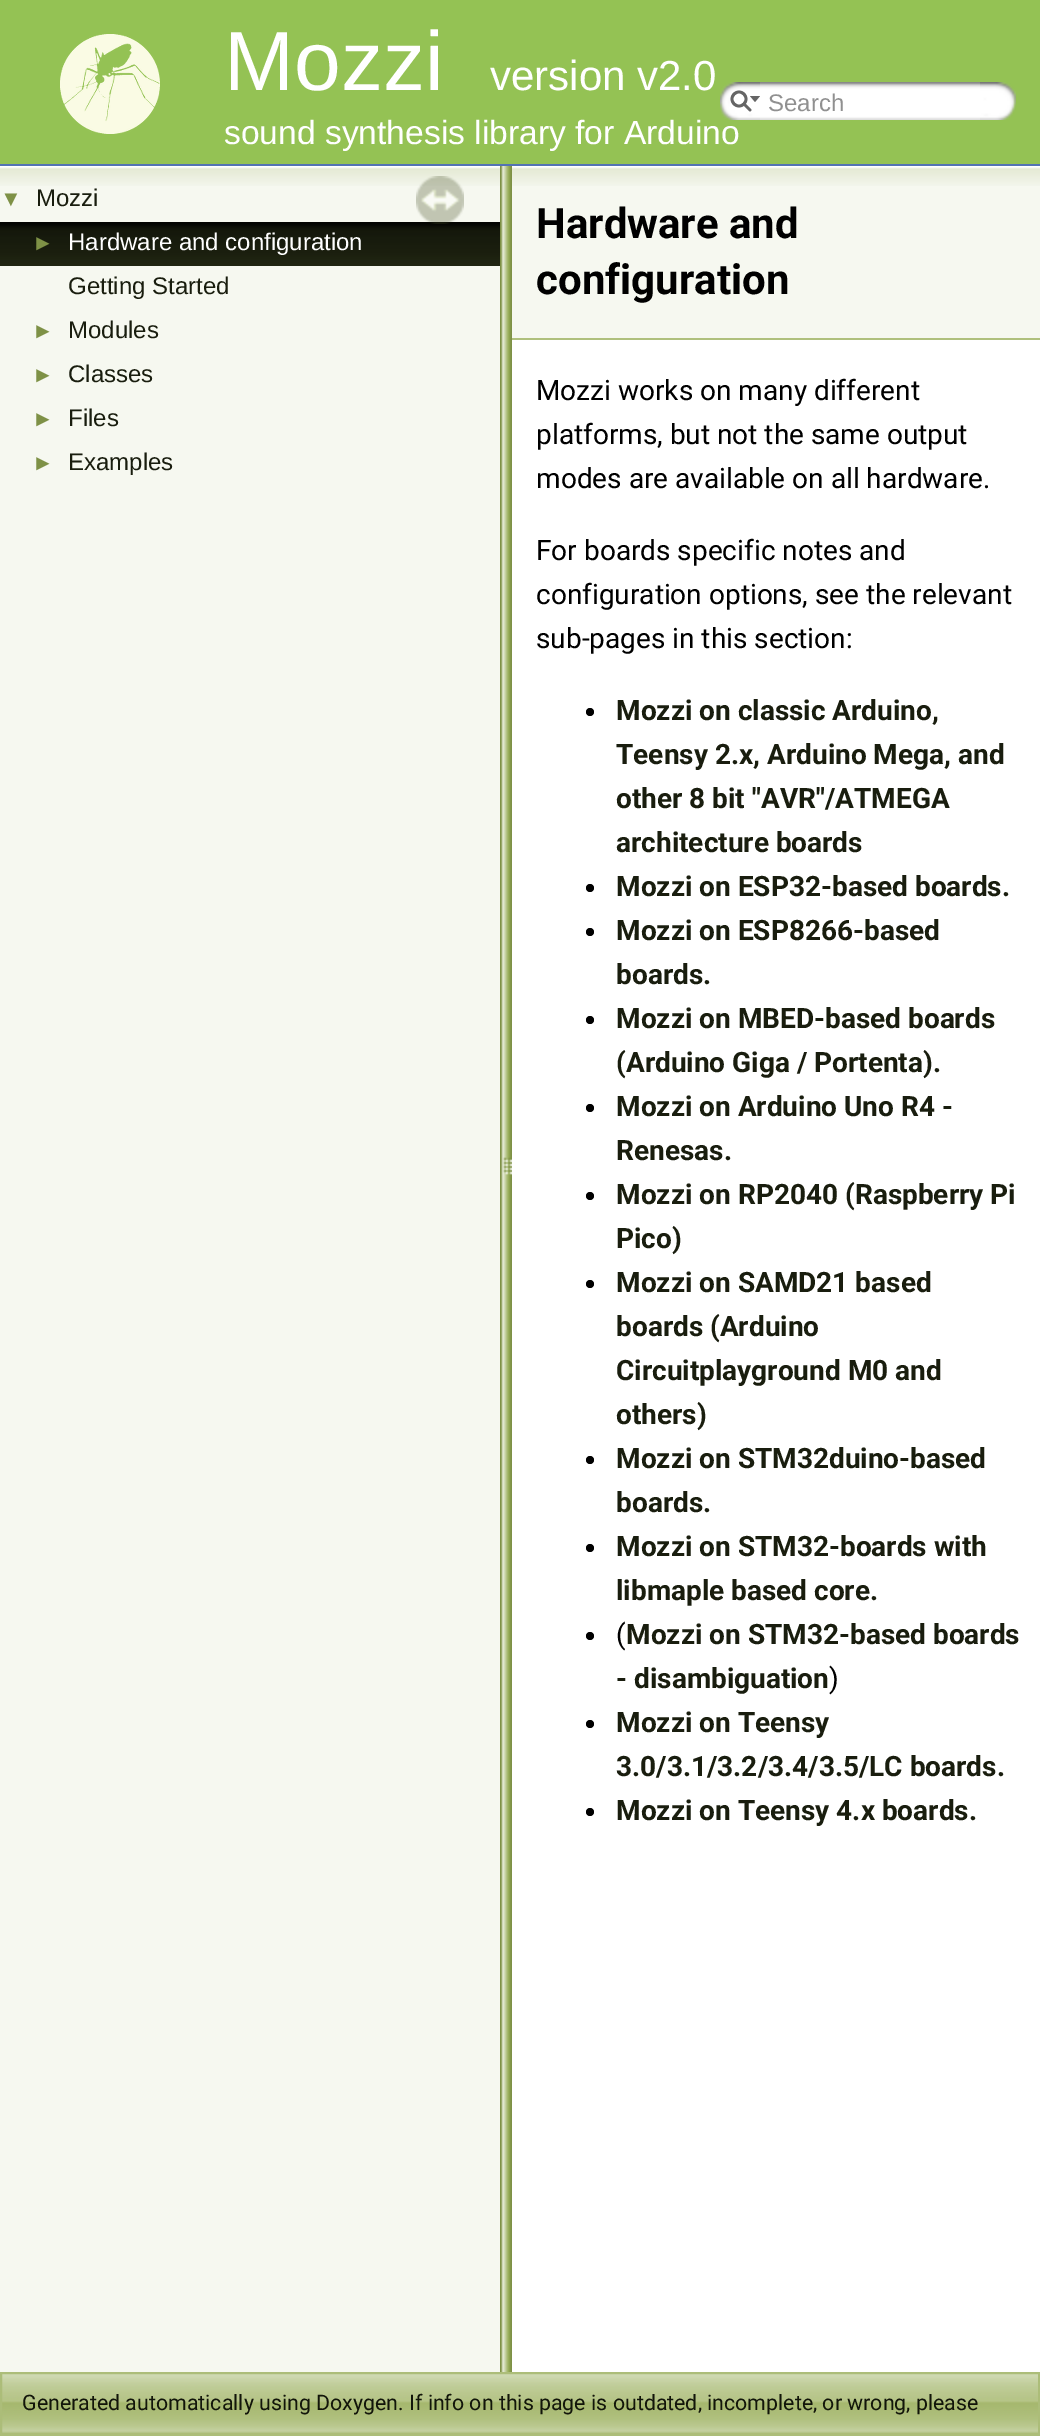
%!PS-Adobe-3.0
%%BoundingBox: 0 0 1040 2436
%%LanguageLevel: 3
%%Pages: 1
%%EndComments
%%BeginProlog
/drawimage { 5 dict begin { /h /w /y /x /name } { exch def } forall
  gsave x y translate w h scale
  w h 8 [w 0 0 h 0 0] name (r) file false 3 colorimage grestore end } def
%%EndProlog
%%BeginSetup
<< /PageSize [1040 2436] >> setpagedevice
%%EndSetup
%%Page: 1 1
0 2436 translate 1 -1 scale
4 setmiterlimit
1 setgray
0 0 1040 2436 rectfill
0.58 0.761 0.329 setrgbcolor
0 0 1040 164 rectfill
0.325 0.451 0.706 setrgbcolor
0 164 1040 2 rectfill
(images/1.raw) 60 34 100 100 drawimage
(images/3.raw) 760 82 220 38 drawimage
(images/4.raw) 980 82 36 38 drawimage
0.965 0.973 0.941 setrgbcolor
0 186 500 2186 rectfill
(images/5.raw) 0 166 500 20 drawimage
(images/6.raw) 0 222 500 44 drawimage
(images/7.raw) 416 176 48 48 drawimage
(images/8.raw) 500 166 12 2206 drawimage
512 186 528 152 rectfill
(images/9.raw) 512 166 528 20 drawimage
0.686 0.753 0.49 setrgbcolor
512 338 528 2 rectfill
0 setgray
newpath 590 712 4 0 360 arc closepath fill
newpath 590 888 4 0 360 arc closepath fill
newpath 590 932 4 0 360 arc closepath fill
newpath 590 1020 4 0 360 arc closepath fill
newpath 590 1108 4 0 360 arc closepath fill
newpath 590 1196 4 0 360 arc closepath fill
newpath 590 1284 4 0 360 arc closepath fill
newpath 590 1460 4 0 360 arc closepath fill
newpath 590 1548 4 0 360 arc closepath fill
newpath 590 1636 4 0 360 arc closepath fill
newpath 590 1724 4 0 360 arc closepath fill
newpath 590 1812 4 0 360 arc closepath fill
(images/10.raw) 2 2374 1036 60 drawimage
0.675 0.741 0.475 setrgbcolor
2 setlinewidth
1 2373 1038 62 rectstroke
/LiberationSans-Regular [84 0 0 -84 0 0] selectfont
1 setgray
224 90 moveto (Mozzi) show
/LiberationSans-Regular [42 0 0 -42 0 0] selectfont
490 90 moveto (version v2.0) show
/LiberationSans-Regular [33.6 0 0 -33.6 0 0] selectfont
224 144 moveto (sound synthesis library for Arduino) show
(images/2.raw) 720 82 40 38 drawimage
0.396 setgray
2.8 setlinewidth
newpath 739 99 7 0 360 arc closepath stroke
newpath 750 96 moveto 755 102 lineto 760 96 lineto closepath fill
1 setlinecap
newpath 744 104 moveto 750 110 lineto stroke
/LiberationSans-Regular [24 0 0 -24 0 0] selectfont
0.565 setgray
768 111 moveto (Search) show
/LiberationSans-Regular [22 0 0 -22 0 0] selectfont
0.494 0.569 0.275 setrgbcolor
0 206 moveto (▼) show
/LiberationSans-Regular [24 0 0 -24 0 0] selectfont
0.098 0.114 0.055 setrgbcolor
36 206 moveto (Mozzi) show
/LiberationSans-Regular [22 0 0 -22 0 0] selectfont
0.494 0.569 0.275 setrgbcolor
32 250 moveto (►) show
/LiberationSans-Regular [24 0 0 -24 0 0] selectfont
1 setgray
68 250 moveto (Hardware and configuration) show
0.098 0.114 0.055 setrgbcolor
68 294 moveto (Getting Started) show
/LiberationSans-Regular [22 0 0 -22 0 0] selectfont
0.494 0.569 0.275 setrgbcolor
32 338 moveto (►) show
/LiberationSans-Regular [24 0 0 -24 0 0] selectfont
0.098 0.114 0.055 setrgbcolor
68 338 moveto (Modules) show
/LiberationSans-Regular [22 0 0 -22 0 0] selectfont
0.494 0.569 0.275 setrgbcolor
32 382 moveto (►) show
/LiberationSans-Regular [24 0 0 -24 0 0] selectfont
0.098 0.114 0.055 setrgbcolor
68 382 moveto (Classes) show
/LiberationSans-Regular [22 0 0 -22 0 0] selectfont
0.494 0.569 0.275 setrgbcolor
32 426 moveto (►) show
/LiberationSans-Regular [24 0 0 -24 0 0] selectfont
0.098 0.114 0.055 setrgbcolor
68 426 moveto (Files) show
/LiberationSans-Regular [22 0 0 -22 0 0] selectfont
0.494 0.569 0.275 setrgbcolor
32 470 moveto (►) show
/LiberationSans-Regular [24 0 0 -24 0 0] selectfont
0.098 0.114 0.055 setrgbcolor
68 470 moveto (Examples) show
/Roboto-Bold [42 0 0 -42 0 0] selectfont
0 setgray
536 238 moveto (Hardware and) show
536 294 moveto (configuration) show
/Roboto-Regular [28 0 0 -28 0 0] selectfont
536 400 moveto (Mozzi works on many different) show
536 444 moveto (platforms, but not the same output) show
536 488 moveto (modes are available on all hardware.) show
536 560 moveto (For boards specific notes and) show
536 604 moveto (configuration options, see the relevant) show
536 648 moveto (sub-pages in this section:) show
/Roboto-Bold [28 0 0 -28 0 0] selectfont
0.098 0.114 0.055 setrgbcolor
616 720 moveto (Mozzi on classic Arduino,) show
616 764 moveto (Teensy 2.x, Arduino Mega, and) show
616 808 moveto (other 8 bit "AVR"/ATMEGA) show
616 852 moveto (architecture boards) show
616 896 moveto (Mozzi on ESP32-based boards.) show
616 940 moveto (Mozzi on ESP8266-based) show
616 984 moveto (boards.) show
616 1028 moveto (Mozzi on MBED-based boards) show
616 1072 moveto (\(Arduino Giga / Portenta\).) show
616 1116 moveto (Mozzi on Arduino Uno R4 -) show
616 1160 moveto (Renesas.) show
616 1204 moveto (Mozzi on RP2040 \(Raspberry Pi) show
616 1248 moveto (Pico\)) show
616 1292 moveto (Mozzi on SAMD21 based) show
616 1336 moveto (boards \(Arduino) show
616 1380 moveto (Circuitplayground M0 and) show
616 1424 moveto (others\)) show
616 1468 moveto (Mozzi on STM32duino-based) show
616 1512 moveto (boards.) show
616 1556 moveto (Mozzi on STM32-boards with) show
616 1600 moveto (libmaple based core.) show
/Roboto-Regular [28 0 0 -28 0 0] selectfont
0 setgray
616 1644 moveto (\() show
/Roboto-Bold [28 0 0 -28 0 0] selectfont
0.098 0.114 0.055 setrgbcolor
626 1644 moveto (Mozzi on STM32-based boards) show
616 1688 moveto (- disambiguation) show
/Roboto-Regular [28 0 0 -28 0 0] selectfont
0 setgray
829 1688 moveto (\)) show
/Roboto-Bold [28 0 0 -28 0 0] selectfont
0.098 0.114 0.055 setrgbcolor
616 1732 moveto (Mozzi on Teensy) show
616 1776 moveto (3.0/3.1/3.2/3.4/3.5/LC boards.) show
616 1820 moveto (Mozzi on Teensy 4.x boards.) show
/Roboto-Regular [21.35 0 0 -21.35 0 0] selectfont
0.071 0.082 0.039 setrgbcolor
22 2410 moveto (Generated automatically using Doxygen. If info on this page is outdated, incomplete, or wrong, please) show
showpage
%%EOF
